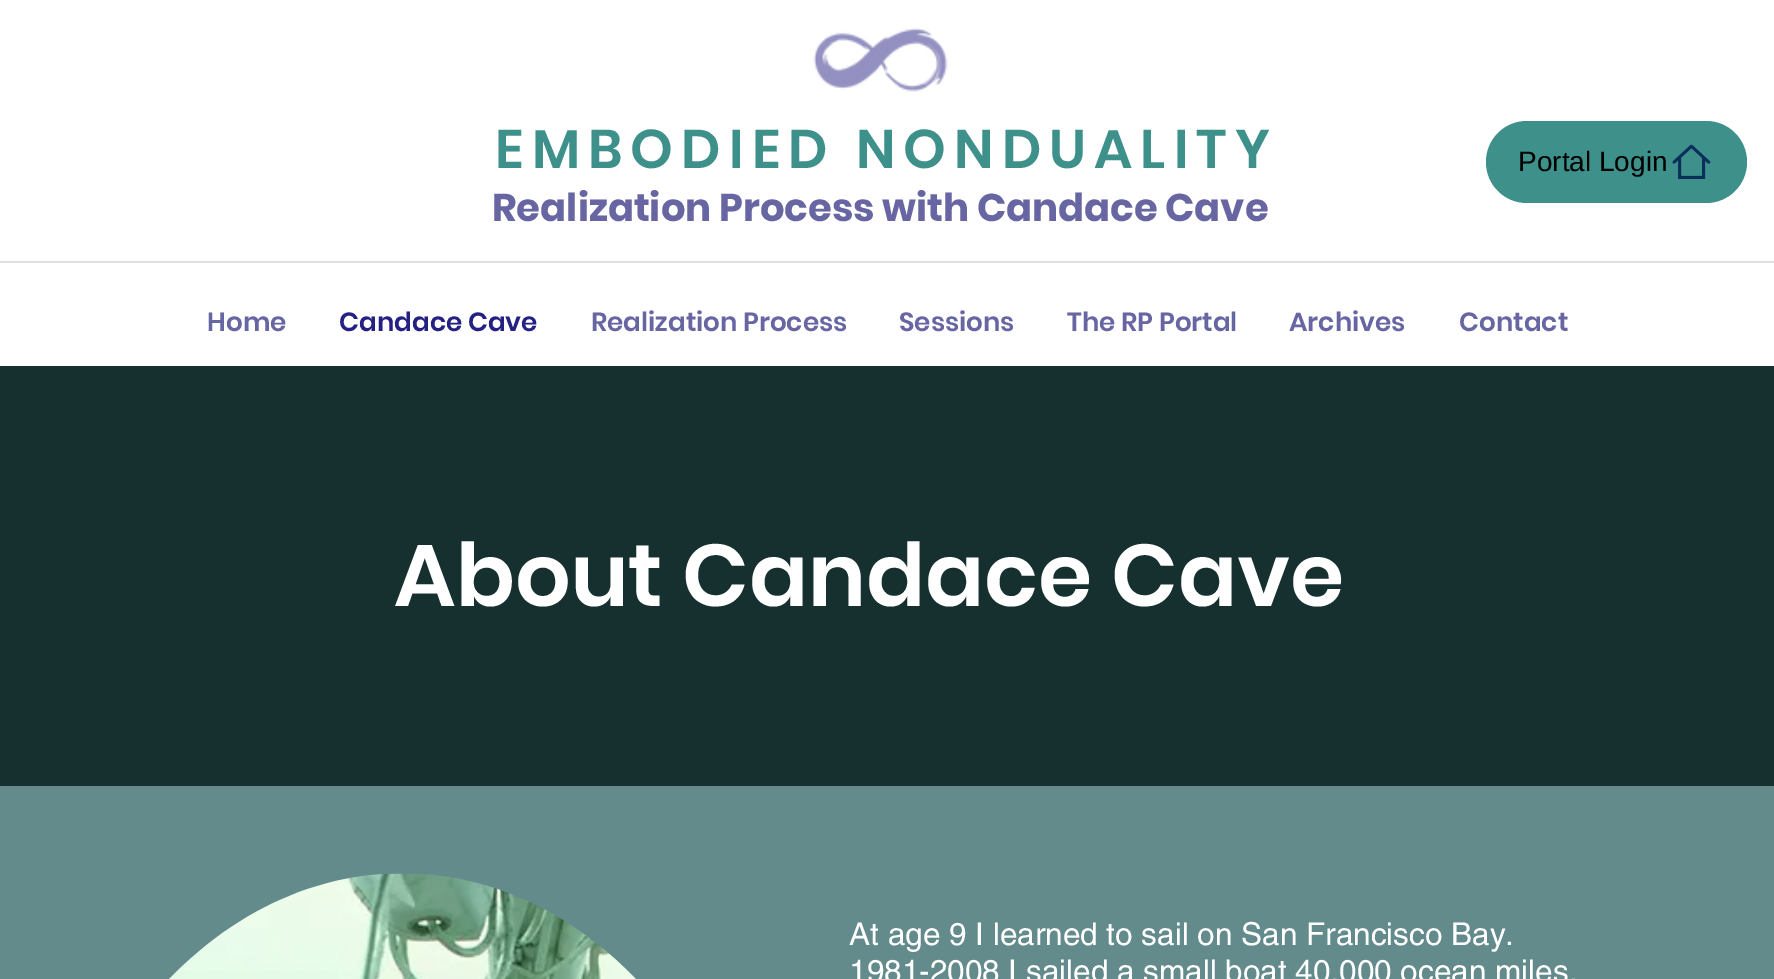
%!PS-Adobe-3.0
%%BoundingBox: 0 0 1774 979
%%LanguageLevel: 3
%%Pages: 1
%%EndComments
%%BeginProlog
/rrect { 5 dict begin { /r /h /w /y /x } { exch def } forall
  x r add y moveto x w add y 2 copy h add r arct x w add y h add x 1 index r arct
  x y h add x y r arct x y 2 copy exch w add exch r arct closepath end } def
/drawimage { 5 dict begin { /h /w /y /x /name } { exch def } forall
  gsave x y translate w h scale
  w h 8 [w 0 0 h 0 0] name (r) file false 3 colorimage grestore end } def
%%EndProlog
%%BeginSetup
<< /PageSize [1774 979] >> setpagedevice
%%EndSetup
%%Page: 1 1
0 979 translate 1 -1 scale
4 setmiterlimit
1 setgray
0 0 1774 979 rectfill
(images/1.raw) 813 28 135 64 drawimage
0.243 0.565 0.545 setrgbcolor
1486 121 261 82 41 rrect fill
(images/2.raw) 1672 144 39 35 drawimage
0.871 setgray
0 261 1774 2 rectfill
0.082 0.188 0.18 setrgbcolor
0 366 1774 420 rectfill
0.388 0.545 0.549 setrgbcolor
0 786 1774 193 rectfill
(images/3.raw) 169 873 467 106 drawimage
/Poppins-SemiBold [54.25 0 0 -54.25 0 0] selectfont
0.243 0.565 0.545 setrgbcolor
495 168 moveto 8.1 0 (EMBODIED NONDUALITY) ashow
/LiberationSans-Regular [28 0 0 -28 0 0] selectfont
0 setgray
1518 171 moveto (Portal Login) show
/Poppins-Bold [38.5 0 0 -38.5 0 0] selectfont
0.408 0.396 0.639 setrgbcolor
492 221 moveto (Realization Process with Candace Cave) show
/Poppins-SemiBold [26.25 0 0 -26.25 0 0] selectfont
207 331 moveto (Home) show
0.141 0.125 0.518 setrgbcolor
339 331 moveto (Candace Cave) show
0.408 0.396 0.639 setrgbcolor
591 331 moveto (Realization Process) show
899 331 moveto (Sessions) show
1067 331 moveto (The RP Portal) show
1289 331 moveto (Archives) show
1459 331 moveto (Contact) show
/Poppins-SemiBold [87.5 0 0 -87.5 0 0] selectfont
1 setgray
394 606 moveto (About Candace Cave) show
/helvetica-Regular [31.5 0 0 -31.5 0 0] selectfont
849 945 moveto (At age 9 I learned to sail on San Francisco Bay.) show
849 982 moveto (1981-2008 I sailed a small boat 40,000 ocean miles.) show
showpage
%%EOF
